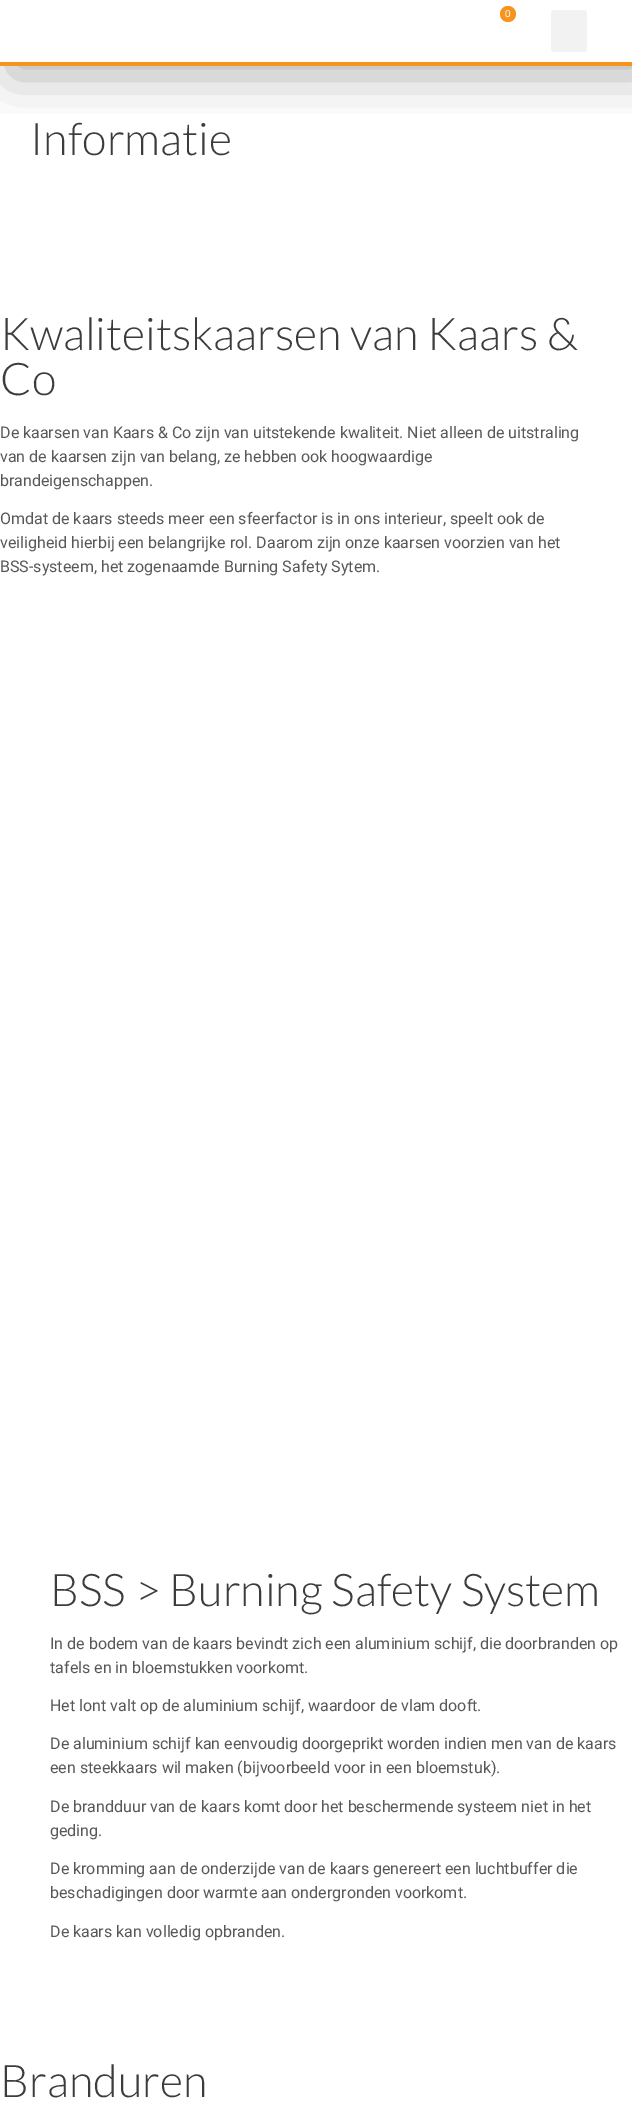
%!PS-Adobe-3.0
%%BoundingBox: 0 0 632 2117
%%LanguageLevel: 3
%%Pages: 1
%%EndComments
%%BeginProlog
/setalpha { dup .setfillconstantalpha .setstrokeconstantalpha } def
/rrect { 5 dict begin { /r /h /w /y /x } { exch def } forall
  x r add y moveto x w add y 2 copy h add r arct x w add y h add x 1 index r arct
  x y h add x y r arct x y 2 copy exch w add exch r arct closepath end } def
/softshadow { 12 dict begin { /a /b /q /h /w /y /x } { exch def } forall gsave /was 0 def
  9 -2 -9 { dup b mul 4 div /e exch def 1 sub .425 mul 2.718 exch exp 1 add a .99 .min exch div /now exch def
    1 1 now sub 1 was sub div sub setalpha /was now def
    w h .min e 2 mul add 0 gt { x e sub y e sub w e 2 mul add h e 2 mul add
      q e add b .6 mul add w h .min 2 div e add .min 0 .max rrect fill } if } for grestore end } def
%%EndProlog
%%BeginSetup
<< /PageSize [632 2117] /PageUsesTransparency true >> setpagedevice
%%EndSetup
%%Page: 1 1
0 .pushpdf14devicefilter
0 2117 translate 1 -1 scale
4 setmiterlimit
1 setgray
0 0 632 2117 rectfill
gsave
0 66 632 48 rectclip
0 setgray
10 10 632 66 0 25.5 0.3 softshadow
grestore
0.969 0.58 0.118 setrgbcolor
0 62 632 4 rectfill
newpath 508 14 8 0 360 arc closepath fill
0.949 setgray
551 10 36 42 3 rrect fill
/LiberationSans-Regular [10 0 0 -10 0 0] selectfont
1 setgray
505 17 moveto (0) show
/Lato-Light [45 0 0 -45 0 0] selectfont
0.235 setgray
30 155 moveto (Informatie) show
0 350 moveto (Kwaliteitskaarsen van Kaars &) show
0 395 moveto (Co) show
/Roboto-Regular [16 0 0 -16 0 0] selectfont
0.345 0.345 0.353 setrgbcolor
0 438 moveto (De kaarsen van Kaars & Co zijn van uitstekende kwaliteit. Niet alleen de uitstraling) show
0 462 moveto (van de kaarsen zijn van belang, ze hebben ook hoogwaardige) show
0 486 moveto (brandeigenschappen.) show
0 524 moveto (Omdat de kaars steeds meer een sfeerfactor is in ons interieur, speelt ook de) show
0 548 moveto (veiligheid hierbij een belangrijke rol. Daarom zijn onze kaarsen voorzien van het) show
0 572 moveto (BSS-systeem, het zogenaamde Burning Safety Sytem.) show
/Lato-Light [45 0 0 -45 0 0] selectfont
0.235 setgray
50 1606 moveto (BSS > Burning Safety System) show
/Roboto-Regular [16 0 0 -16 0 0] selectfont
0.345 0.345 0.353 setrgbcolor
50 1649 moveto (In de bodem van de kaars bevindt zich een aluminium schijf, die doorbranden op) show
50 1673 moveto (tafels en in bloemstukken voorkomt.) show
50 1711 moveto (Het lont valt op de aluminium schijf, waardoor de vlam dooft.) show
50 1749 moveto (De aluminium schijf kan eenvoudig doorgeprikt worden indien men van de kaars) show
50 1773 moveto (een steekkaars wil maken \(bijvoorbeeld voor in een bloemstuk\).) show
50 1812 moveto (De brandduur van de kaars komt door het beschermende systeem niet in het) show
50 1836 moveto (geding.) show
50 1874 moveto (De kromming aan de onderzijde van de kaars genereert een luchtbuffer die) show
50 1898 moveto (beschadigingen door warmte aan ondergronden voorkomt.) show
50 1937 moveto (De kaars kan volledig opbranden.) show
/Lato-Light [45 0 0 -45 0 0] selectfont
0.235 setgray
0 2097 moveto (Branduren) show
.poppdf14devicefilter showpage
%%EOF
